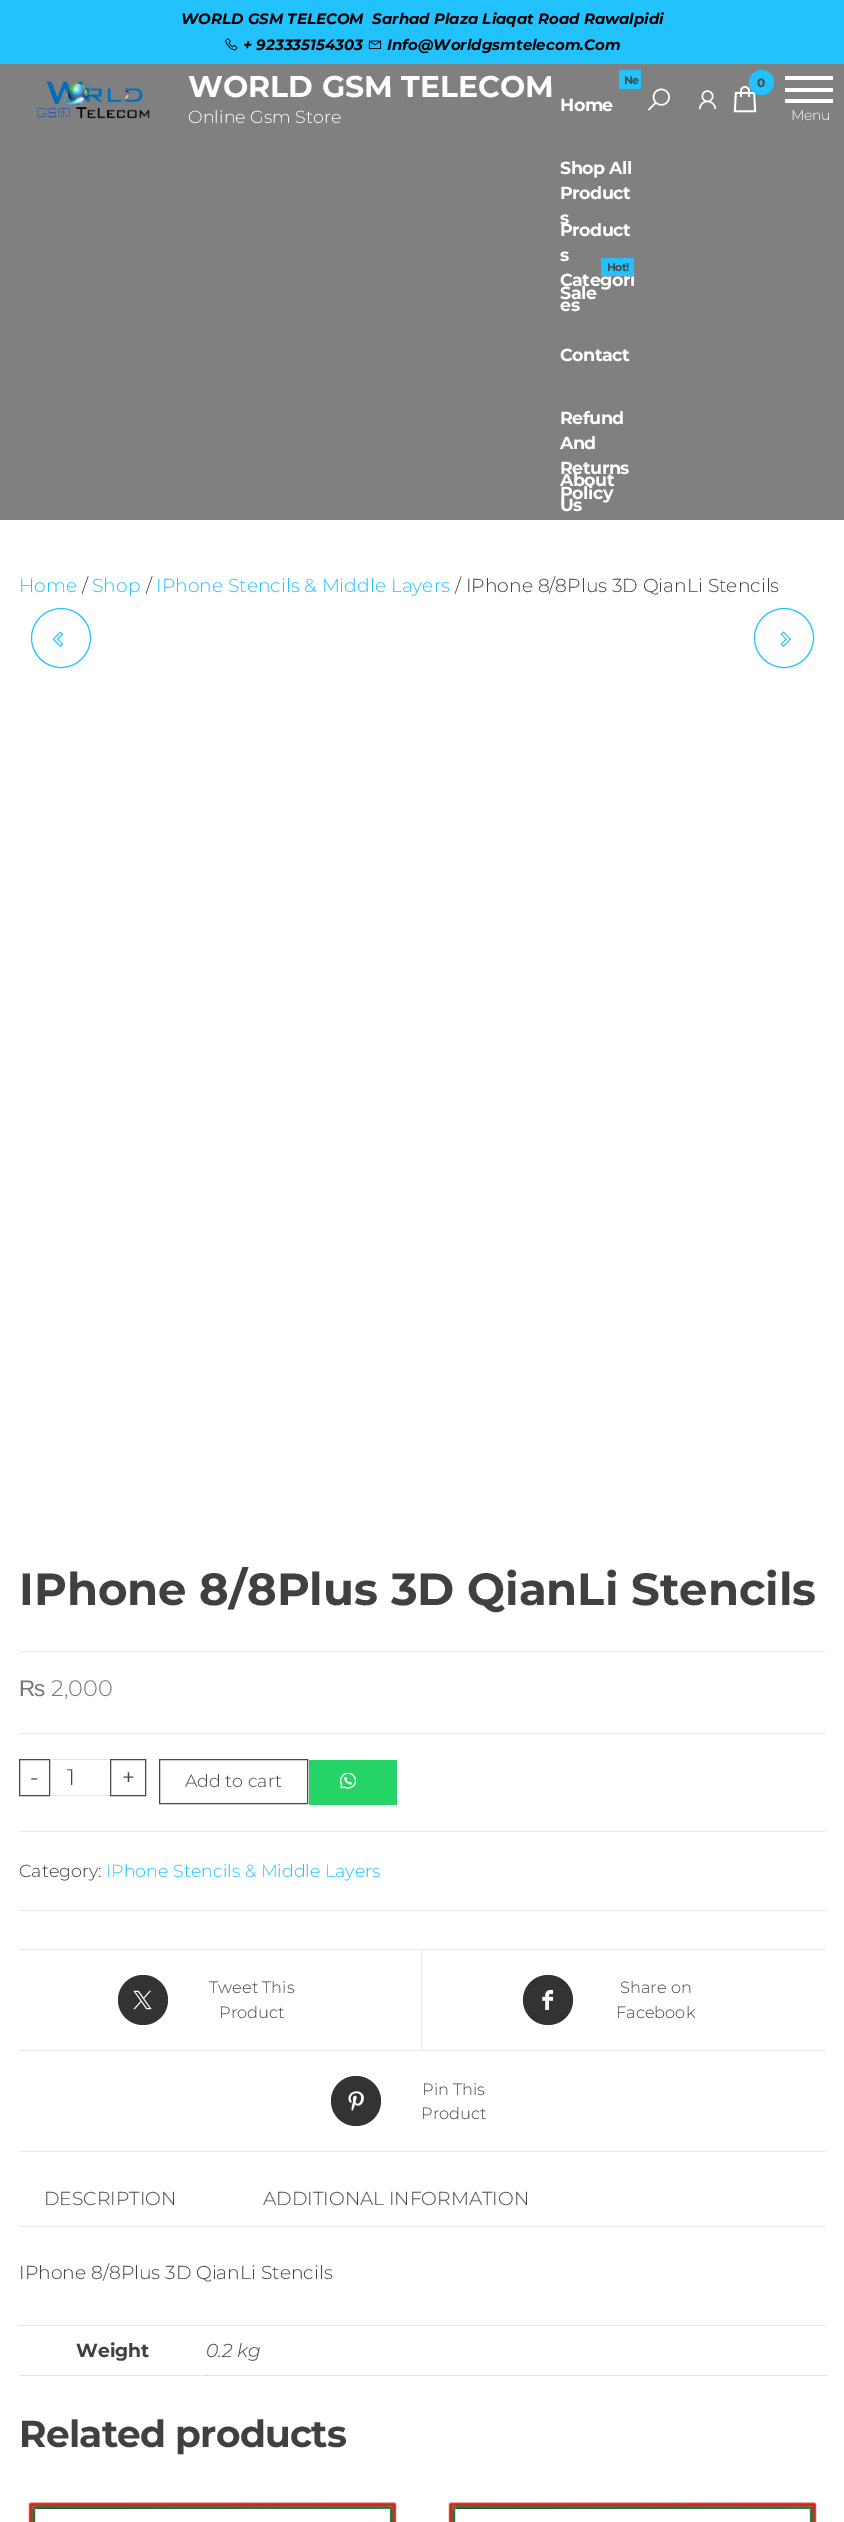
%!PS-Adobe-3.0
%%BoundingBox: 0 0 844 2522
%%LanguageLevel: 3
%%Pages: 1
%%EndComments
%%BeginProlog
/rrect { 5 dict begin { /r /h /w /y /x } { exch def } forall
  x r add y moveto x w add y 2 copy h add r arct x w add y h add x 1 index r arct
  x y h add x y r arct x y 2 copy exch w add exch r arct closepath end } def
/drawimage { 5 dict begin { /h /w /y /x /name } { exch def } forall
  gsave x y translate w h scale
  w h 8 [w 0 0 h 0 0] name (r) file false 3 colorimage grestore end } def
%%EndProlog
%%BeginSetup
<< /PageSize [844 2522] >> setpagedevice
%%EndSetup
%%Page: 1 1
0 2522 translate 1 -1 scale
4 setmiterlimit
1 setgray
0 0 844 2522 rectfill
0.902 setgray
19 2375 809 1 rectfill
0.133 0.761 1 setrgbcolor
0 0 844 64 rectfill
(images/1.raw) 225 38 13 13 drawimage
(images/2.raw) 368 40 14 10 drawimage
0.502 setgray
0 64 844 456 rectfill
(images/3.raw) 37 81 113 38 drawimage
0.133 0.761 1 setrgbcolor
newpath 620 70 moveto 641 70 lineto 641 89 lineto 620 89 lineto 619.5 89 619 88.5 619 88 curveto 619 71 lineto 619 70.5 619.5 70 620 70 curveto closepath fill
(images/4.raw) 733 85 24 28 drawimage
newpath 761.5 82.5 12.5 0 360 arc closepath fill
1 setgray
785 76 48 4 rectfill
785 88 48 4 rectfill
785 99 48 4 rectfill
(images/5.raw) 648 88 22 23 drawimage
(images/6.raw) 698 90 19 20 drawimage
0.133 0.761 1 setrgbcolor
newpath 61 638 29.5 0 360 arc closepath stroke
(images/7.raw) 52 631 12 16 drawimage
newpath 784 638 29.5 0 360 arc closepath stroke
(images/8.raw) 780 631 12 16 drawimage
0.918 setgray
19 1651 807 1 rectfill
19 1733 807 1 rectfill
19 1831 807 1 rectfill
0.282 setgray
19.5 1759.5 30 36 rectstroke
0.886 setgray
50 1759 60 1 rectfill
50 1795 60 1 rectfill
0.282 setgray
110.5 1759.5 35 36 rectstroke
159.5 1759.5 148 44 rectstroke
0.145 0.827 0.4 setrgbcolor
309 1760 88 45 rectfill
(images/9.raw) 340 1773 16 16 drawimage
0.918 setgray
19 1910 807 1 rectfill
0.914 setgray
19 1949 807 1 rectfill
19 2151 807 1 rectfill
421 1950 1 101 rectfill
19 2050 807 1 rectfill
0.2 setgray
newpath 143 2000 25 0 360 arc closepath fill
(images/10.raw) 133 1990 19 20 drawimage
newpath 548 2000 25 0 360 arc closepath fill
(images/11.raw) 542 1990 12 20 drawimage
newpath 356 2101 25 0 360 arc closepath fill
(images/12.raw) 348 2091 16 20 drawimage
0.918 setgray
19 2226 807 1 rectfill
0.902 setgray
19 2325 807 1 rectfill
0.812 setgray
206 2375 2 1 rectfill
(images/13.raw) 28 2502 369 20 drawimage
(images/14.raw) 448 2502 369 20 drawimage
/Montserrat-BoldItalic [15 0 0 -15 0 0] selectfont
0 setgray
181 24 moveto (WORLD GSM TELECOM  Sarhad Plaza Liaqat Road Rawalpidi) show
243 50 moveto (+ 923335154303) show
387 50 moveto (Info@Worldgsmtelecom.Com) show
/Montserrat-Bold [30 0 0 -30 0 0] selectfont
1 setgray
188 97 moveto (WORLD GSM TELECOM) show
/Montserrat-Light [17.5 0 0 -17.5 0 0] selectfont
188 123 moveto (Online Gsm Store) show
/Montserrat-Bold [11 0 0 -11 0 0] selectfont
0.282 setgray
624 84 moveto -0.5 0 (Ne) ashow
/Montserrat-Bold [17.5 0 0 -17.5 0 0] selectfont
1 setgray
560 111 moveto -0.5 0 (Home) ashow
560 174 moveto -0.5 0 (Shop All) ashow
560 199 moveto -0.5 0 (Product) ashow
560 224 moveto -0.5 0 (s) ashow
560 236 moveto -0.5 0 (Product) ashow
560 261 moveto -0.5 0 (s) ashow
560 286 moveto -0.5 0 (Categori) ashow
560 311 moveto -0.5 0 (es) ashow
0.133 0.761 1 setrgbcolor
601 258 33 18 1 rrect fill
/Montserrat-Bold [11 0 0 -11 0 0] selectfont
0.282 setgray
607 271 moveto -0.5 0 (Hot!) ashow
/Montserrat-Bold [17.5 0 0 -17.5 0 0] selectfont
1 setgray
560 299 moveto -0.5 0 (Sale) ashow
560 361 moveto -0.5 0 (Contact) ashow
560 424 moveto -0.5 0 (Refund) ashow
560 449 moveto -0.5 0 (And) ashow
560 474 moveto -0.5 0 (Returns) ashow
560 499 moveto -0.5 0 (Policy) ashow
560 486 moveto -0.5 0 (About) ashow
560 511 moveto -0.5 0 (Us) ashow
/Montserrat-Bold [12 0 0 -12 0 0] selectfont
0.282 setgray
757 87 moveto -0.5 0 (0) ashow
/Montserrat-Light [14 0 0 -14 0 0] selectfont
1 setgray
791 120 moveto -0.5 0 (Menu) ashow
/Montserrat-Light [18.75 0 0 -18.75 0 0] selectfont
0.133 0.761 1 setrgbcolor
19 592 moveto (Home) show
0.251 setgray
82 592 moveto (/) show
0.133 0.761 1 setrgbcolor
92 592 moveto (Shop) show
0.251 setgray
146 592 moveto (/) show
0.133 0.761 1 setrgbcolor
156 592 moveto (IPhone Stencils & Middle Layers) show
0.251 setgray
455 592 moveto (/ IPhone 8/8Plus 3D QianLi Stencils) show
/Montserrat-Bold [45 0 0 -45 0 0] selectfont
19 1605 moveto (IPhone 8/8Plus 3D QianLi Stencils) show
/LiberationSans-Regular [22.5 0 0 -22.5 0 0] selectfont
0.467 setgray
19 1696 moveto (₨) show
/Montserrat-Light [22.5 0 0 -22.5 0 0] selectfont
51 1696 moveto (2,000) show
/Montserrat-Regular [22.5 0 0 -22.5 0 0] selectfont
0.282 setgray
30 1785 moveto (-) show
/Montserrat-Light [22.5 0 0 -22.5 0 0] selectfont
67 1785 moveto (1) show
/Montserrat-Regular [22.5 0 0 -22.5 0 0] selectfont
122 1785 moveto (+) show
/Montserrat-Light [17.5 0 0 -17.5 0 0] selectfont
185 1787 moveto (Add to cart) show
0.251 setgray
19 1877 moveto (Category:) show
0.133 0.761 1 setrgbcolor
106 1877 moveto (IPhone Stencils & Middle Layers) show
/Montserrat-Light [16.25 0 0 -16.25 0 0] selectfont
0.251 setgray
209 1993 moveto (Tweet This) show
219 2018 moveto (Product) show
620 1993 moveto (Share on) show
616 2018 moveto (Facebook) show
422 2095 moveto (Pin This) show
421 2119 moveto (Product) show
/Montserrat-Light [18.75 0 0 -18.75 0 0] selectfont
0.282 setgray
44 2205 moveto (DESCRIPTION) show
263 2205 moveto (ADDITIONAL INFORMATION) show
0.251 setgray
19 2279 moveto (IPhone 8/8Plus 3D QianLi Stencils) show
/Montserrat-Bold [18.75 0 0 -18.75 0 0] selectfont
76 2357 moveto (Weight) show
/Montserrat-LightItalic [18.75 0 0 -18.75 0 0] selectfont
206 2357 moveto (0.2 kg) show
/Montserrat-Bold [37.5 0 0 -37.5 0 0] selectfont
19 2447 moveto -0.75 0 (Related products) ashow
showpage
%%EOF
